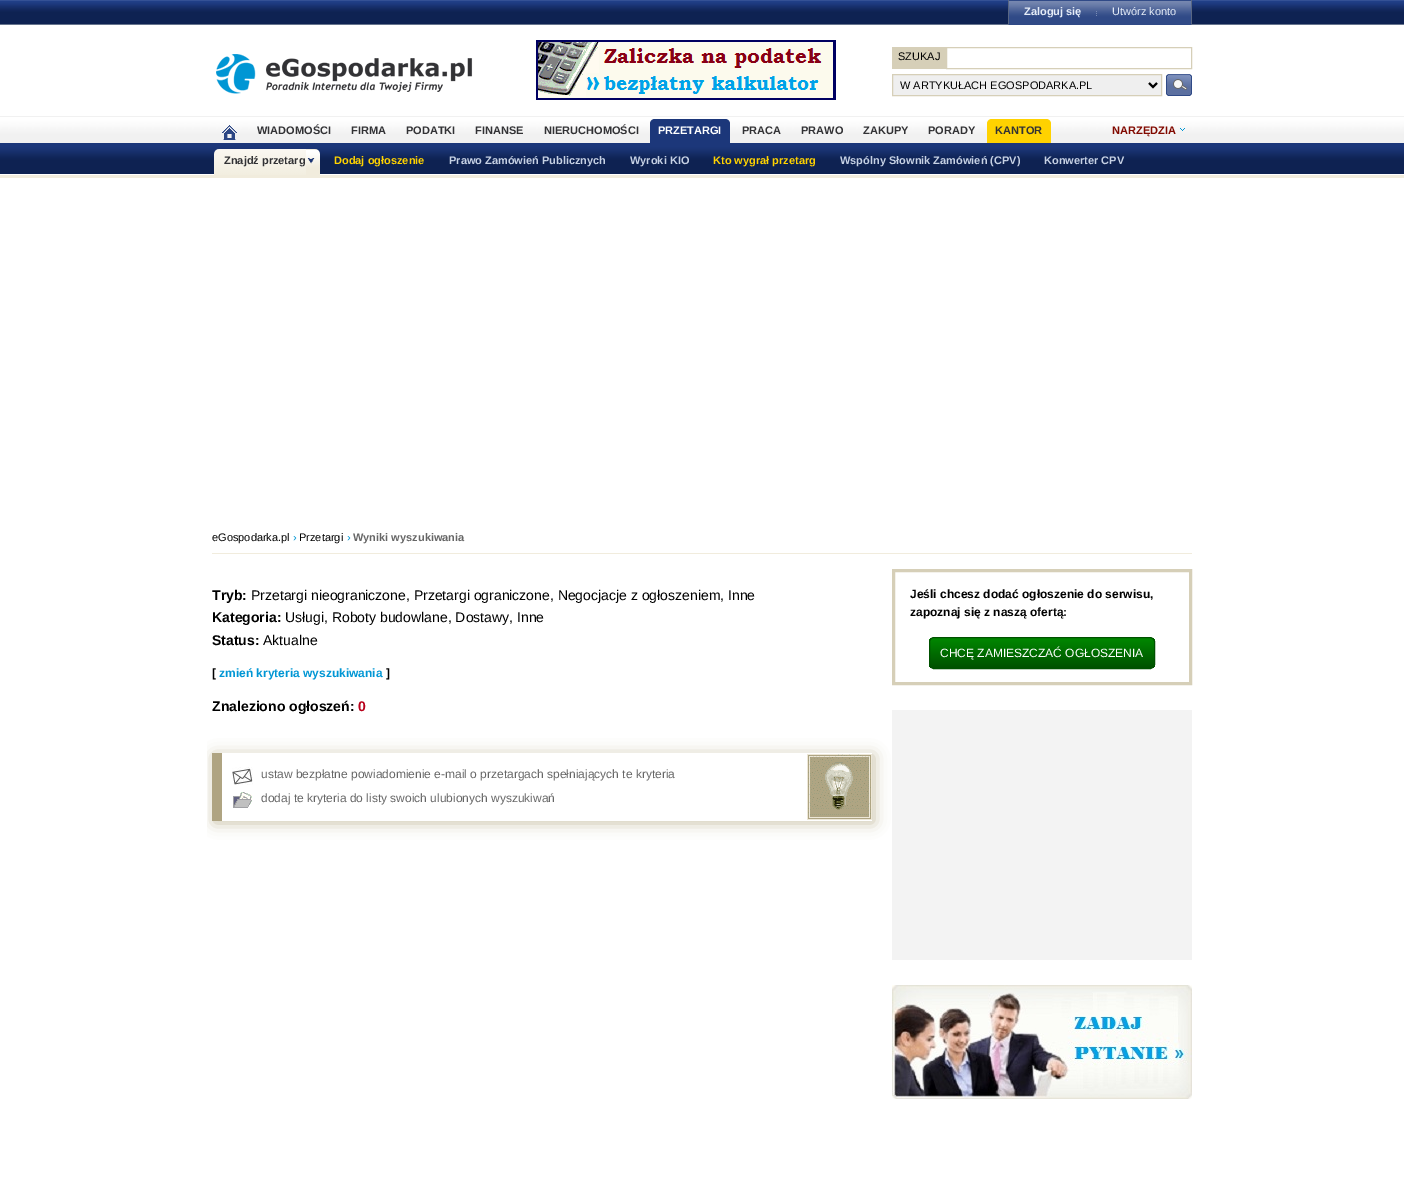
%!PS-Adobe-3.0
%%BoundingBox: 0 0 1404 1179
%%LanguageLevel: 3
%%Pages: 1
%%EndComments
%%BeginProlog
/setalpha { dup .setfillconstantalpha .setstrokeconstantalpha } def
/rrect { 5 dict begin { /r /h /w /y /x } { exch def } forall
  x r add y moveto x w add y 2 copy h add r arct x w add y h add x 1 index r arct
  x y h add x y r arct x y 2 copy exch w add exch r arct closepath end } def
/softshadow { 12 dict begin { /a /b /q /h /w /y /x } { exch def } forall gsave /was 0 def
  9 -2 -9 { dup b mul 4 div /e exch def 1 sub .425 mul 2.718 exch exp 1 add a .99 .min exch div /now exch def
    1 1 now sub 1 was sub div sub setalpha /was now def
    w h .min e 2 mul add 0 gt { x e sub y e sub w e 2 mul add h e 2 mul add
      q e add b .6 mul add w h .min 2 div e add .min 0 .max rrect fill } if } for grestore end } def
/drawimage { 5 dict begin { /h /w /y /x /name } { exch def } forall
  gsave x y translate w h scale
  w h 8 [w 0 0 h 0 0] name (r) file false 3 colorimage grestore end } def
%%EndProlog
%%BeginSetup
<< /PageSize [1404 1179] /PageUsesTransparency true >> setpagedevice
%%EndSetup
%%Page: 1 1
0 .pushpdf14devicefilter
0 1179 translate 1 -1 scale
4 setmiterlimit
1 setgray
0 0 1404 1179 rectfill
(images/3.raw) 0 0 1404 25 drawimage
(images/1.raw) 1009 0 182 25 drawimage
0.345 0.4 0.514 setrgbcolor
1191 0 1 25 rectfill
1008 0 1 25 rectfill
(images/2.raw) 1096 11 1 5 drawimage
(images/4.raw) 216 54 257 40 drawimage
(images/5.raw) 536 40 300 60 drawimage
0.839 0.812 0.722 setrgbcolor
892 47 54 22 rectfill
946.5 47.5 245 21 rectstroke
0.937 setgray
newpath 892.5 74.5 moveto 1161.5 74.5 lineto 1161.5 95.5 lineto 892.5 95.5 lineto closepath gsave fill grestore
0.839 0.812 0.722 setrgbcolor
stroke
0 setgray
2 setlinewidth
newpath 1149 83 moveto 1153 87 lineto 1157 83 lineto stroke
(images/6.raw) 1166 74 26 22 drawimage
(images/7.raw) 0 116 1404 62 drawimage
(images/8.raw) 222 125 15 15 drawimage
0.11 0.216 0.478 setrgbcolor
newpath 655 119 moveto 725 119 lineto 728 119 730 121 730 124 curveto 730 145 lineto 650 145 lineto 650 124 lineto 650 121 652 119 655 119 curveto closepath fill
1 0.824 0 setrgbcolor
newpath 992 119 moveto 1046 119 lineto 1049 119 1051 121 1051 124 curveto 1051 143 lineto 987 143 lineto 987 124 lineto 987 121 989 119 992 119 curveto closepath fill
(images/9.raw) 1180 128 5 3 drawimage
(images/10.raw) 214 149 106 26 drawimage
0.945 0.925 0.867 setrgbcolor
212 553 980 1 rectfill
gsave
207 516 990 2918 rectclip
newpath 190 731 moveto 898 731 lineto 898 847 lineto 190 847 lineto closepath 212 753 moveto 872 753 lineto 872 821 lineto 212 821 lineto closepath eoclip newpath
0.788 0.753 0.655 setrgbcolor
214 755 660 68 0 7.5 1 softshadow
grestore
(images/11.raw) 807 754 65 66 drawimage
0.686 0.643 0.51 setrgbcolor
212 753 10 68 rectfill
(images/12.raw) 232 767 21 18 drawimage
(images/13.raw) 233 792 19 16 drawimage
0.839 0.812 0.722 setrgbcolor
3 setlinewidth
893.5 570.5 297 113 rectstroke
gsave
929 637 226 32 5 rrect clip newpath
gsave newpath 929 638 moveto 1155 638 lineto 1155 668 lineto 929 668 lineto closepath clip newpath
<< /ShadingType 2 /ColorSpace /DeviceRGB /Coords [1042 638 1042 668] /Extend [true true] /Function << /FunctionType 2 /Domain [0 1] /C0 [0 0.533 0] /C1 [0 0.318 0] /N 1 >> >> shfill grestore
grestore
0 0.318 0 setrgbcolor
1 setlinewidth
929.5 637.5 225 31 4.5 rrect stroke
0.953 setgray
892 710 300 250 rectfill
(images/14.raw) 892 985 300 114 drawimage
/LiberationSans-Bold [11 0 0 -11 0 0] selectfont
0.902 0.929 0.973 setrgbcolor
1024 15 moveto (Zaloguj się) show
/LiberationSans-Regular [11 0 0 -11 0 0] selectfont
1112 15 moveto (Utwórz konto) show
0 setgray
898 60 moveto (SZUKAJ) show
900 89 moveto (W ARTYKUŁACH EGOSPODARKA.PL) show
/LiberationSans-Bold [11 0 0 -11 0 0] selectfont
0.196 0.196 0.208 setrgbcolor
257 134 moveto (WIADOMOŚCI) show
351 134 moveto (FIRMA) show
406 134 moveto (PODATKI) show
475 134 moveto (FINANSE) show
544 134 moveto (NIERUCHOMOŚCI) show
1 setgray
658 134 moveto (PRZETARGI) show
0.196 0.196 0.208 setrgbcolor
742 134 moveto (PRACA) show
801 134 moveto (PRAWO) show
863 134 moveto (ZAKUPY) show
928 134 moveto (PORADY) show
995 134 moveto (KANTOR) show
0.506 0.035 0 setrgbcolor
1112 134 moveto (NARZĘDZIA) show
0.196 0.196 0.208 setrgbcolor
224 164 moveto (Znajdź przetarg) show
1 0.824 0 setrgbcolor
334 164 moveto (Dodaj ogłoszenie) show
0.776 0.82 0.894 setrgbcolor
449 164 moveto (Prawo Zamówień Publicznych) show
630 164 moveto (Wyroki KIO) show
1 0.824 0 setrgbcolor
713 164 moveto (Kto wygrał przetarg) show
0.776 0.82 0.894 setrgbcolor
840 164 moveto (Wspólny Słownik Zamówień \(CPV\)) show
1044 164 moveto (Konwerter CPV) show
/LiberationSans-Regular [11 0 0 -11 0 0] selectfont
0 setgray
212 541 moveto (eGospodarka.pl) show
0 0.588 0.831 setrgbcolor
293 541 moveto (›) show
0 setgray
299 541 moveto (Przetargi) show
0 0.588 0.831 setrgbcolor
347 541 moveto (›) show
/LiberationSans-Bold [11 0 0 -11 0 0] selectfont
0.4 setgray
353 541 moveto (Wyniki wyszukiwania) show
/LiberationSans-Bold [14 0 0 -14 0 0] selectfont
0 setgray
212 600 moveto (Tryb:) show
/LiberationSans-Regular [14 0 0 -14 0 0] selectfont
251 600 moveto (Przetargi nieograniczone, Przetargi ograniczone, Negocjacje z ogłoszeniem, Inne) show
/LiberationSans-Bold [14 0 0 -14 0 0] selectfont
212 622 moveto (Kategoria:) show
/LiberationSans-Regular [14 0 0 -14 0 0] selectfont
285 622 moveto (Usługi, Roboty budowlane, Dostawy, Inne) show
/LiberationSans-Bold [14 0 0 -14 0 0] selectfont
212 645 moveto (Status:) show
/LiberationSans-Regular [14 0 0 -14 0 0] selectfont
263 645 moveto (Aktualne) show
/LiberationSans-Bold [12 0 0 -12 0 0] selectfont
212 677 moveto ([) show
0 0.588 0.831 setrgbcolor
219 677 moveto (zmień kryteria wyszukiwania) show
0 setgray
386 677 moveto (]) show
/LiberationSans-Bold [14 0 0 -14 0 0] selectfont
212 711 moveto (Znaleziono ogłoszeń:) show
0.722 0 0.102 setrgbcolor
358 711 moveto (0) show
/LiberationSans-Regular [12 0 0 -12 0 0] selectfont
0.4 setgray
261 778 moveto (ustaw bezpłatne powiadomienie e-mail o przetargach spełniających te kryteria) show
261 802 moveto (dodaj te kryteria do listy swoich ulubionych wyszukiwań) show
/LiberationSans-Bold [12 0 0 -12 0 0] selectfont
0 setgray
910 598 moveto (Jeśli chcesz dodać ogłoszenie do serwisu,) show
910 616 moveto (zapoznaj się z naszą ofertą:) show
/LiberationSans-Regular [12 0 0 -12 0 0] selectfont
1 setgray
940 657 moveto (CHCĘ ZAMIESZCZAĆ OGŁOSZENIA) show
.poppdf14devicefilter showpage
%%EOF
